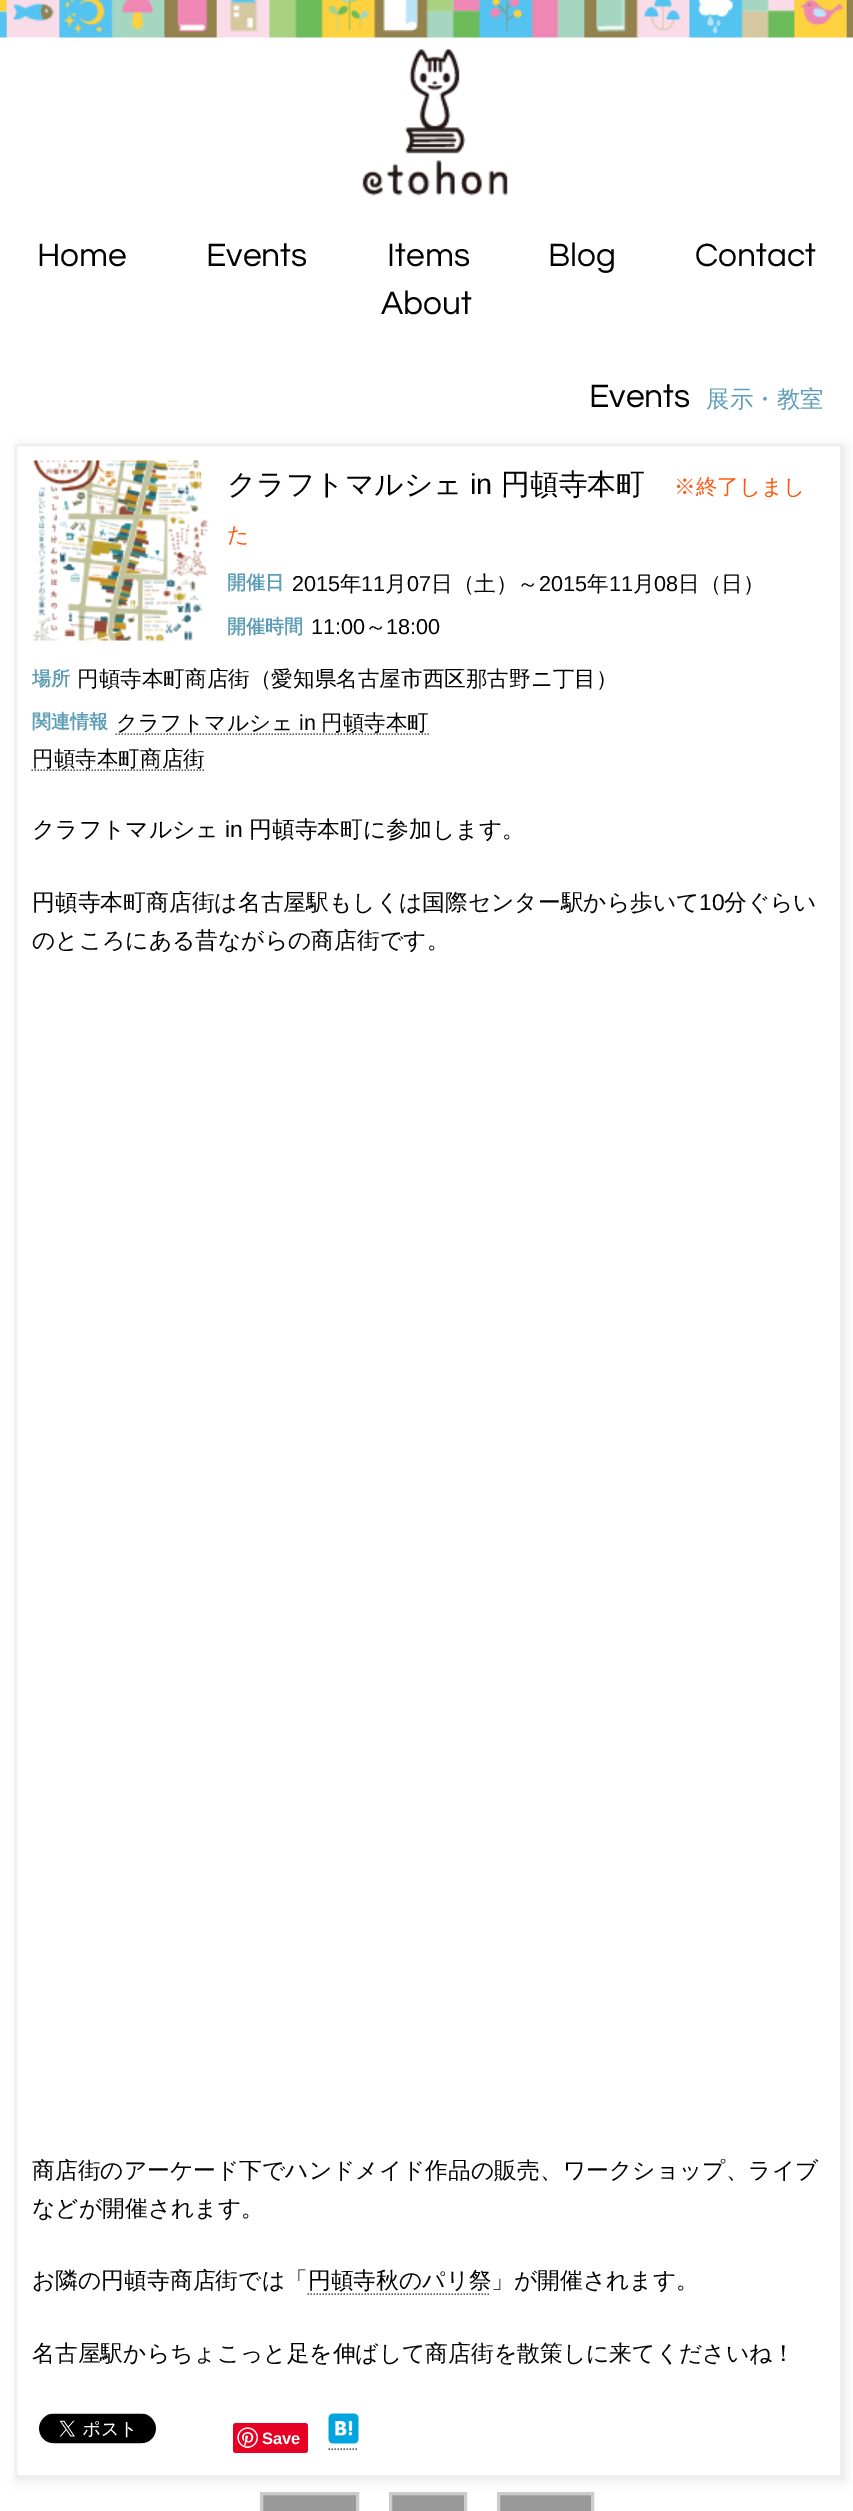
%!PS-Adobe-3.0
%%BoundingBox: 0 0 853 2511
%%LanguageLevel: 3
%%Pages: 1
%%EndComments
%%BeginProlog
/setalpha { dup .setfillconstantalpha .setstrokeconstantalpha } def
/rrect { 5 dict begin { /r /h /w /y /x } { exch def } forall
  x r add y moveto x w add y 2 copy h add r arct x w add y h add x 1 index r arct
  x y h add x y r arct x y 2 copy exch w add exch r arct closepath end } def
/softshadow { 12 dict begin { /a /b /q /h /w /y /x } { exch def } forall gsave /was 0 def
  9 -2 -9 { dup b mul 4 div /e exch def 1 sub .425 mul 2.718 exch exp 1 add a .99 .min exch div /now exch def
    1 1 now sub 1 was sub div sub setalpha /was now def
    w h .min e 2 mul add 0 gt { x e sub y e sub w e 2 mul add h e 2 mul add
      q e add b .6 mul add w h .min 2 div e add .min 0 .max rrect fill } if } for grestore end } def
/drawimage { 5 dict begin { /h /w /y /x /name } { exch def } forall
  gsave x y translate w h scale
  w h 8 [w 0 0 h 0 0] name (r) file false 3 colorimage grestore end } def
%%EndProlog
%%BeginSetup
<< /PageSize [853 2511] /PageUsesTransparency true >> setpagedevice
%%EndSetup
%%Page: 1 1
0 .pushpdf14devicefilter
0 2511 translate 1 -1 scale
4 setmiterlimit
1 setgray
0 0 853 2511 rectfill
(images/1.raw) 0 0 853 38 drawimage
(images/2.raw) 362 49 146 147 drawimage
0.6 setgray
newpath 261.5 2493.5 moveto 357.5 2493.5 lineto 357.5 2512.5 lineto 261.5 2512.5 lineto closepath gsave fill grestore
0.8 setgray
3 setlinewidth
stroke
0.6 setgray
newpath 390.5 2493.5 moveto 465.5 2493.5 lineto 465.5 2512.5 lineto 390.5 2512.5 lineto closepath gsave fill grestore
0.8 setgray
stroke
0.6 setgray
newpath 498.5 2493.5 moveto 592.5 2493.5 lineto 592.5 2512.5 lineto 498.5 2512.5 lineto closepath gsave fill grestore
0.8 setgray
stroke
0 setgray
18 447 827 2033 0 6 0.1 softshadow
1 setgray
newpath 16 445 moveto 841 445 lineto 841 2476 lineto 16 2476 lineto closepath gsave fill grestore
0.933 setgray
2 setlinewidth
stroke
(images/3.raw) 32 460 177 181 drawimage
0.4 setgray
1.5 setlinewidth
[1.5 1.5] 0 setdash
newpath 115.5 734 moveto 429 734 lineto stroke
newpath 31.5 770 moveto 204 770 lineto stroke
newpath 307.5 2294 moveto 490.5 2294 lineto stroke
(images/4.raw) 39 2413 117 31 drawimage
0.902 0 0.137 setrgbcolor
233 2423 75 30 3 rrect fill
(images/5.raw) 237 2427 21 21 drawimage
(images/6.raw) 328 2413 31 31 drawimage
0.4 setgray
newpath 328.5 2449 moveto 358.5 2449 lineto stroke
/Questrial-Regular [33.5 0 0 -33.5 0 0] selectfont
0 setgray
37 266 moveto (Home) show
206 266 moveto (Events) show
387 266 moveto (Items) show
548 266 moveto (Blog) show
695 266 moveto (Contact) show
381 314 moveto (About) show
589 407 moveto (Events) show
/WenQuanYiZenHei-Medium [23.5 0 0 -23.5 0 0] selectfont
0.365 0.616 0.714 setrgbcolor
706 407 moveto (展示・教室) show
/WenQuanYiZenHei-Medium [28.75 0 0 -28.75 0 0] selectfont
0 setgray
227 494 moveto (クラフトマルシェ) show
/LiberationSans-Regular [28.75 0 0 -28.75 0 0] selectfont
470 494 moveto (in) show
/WenQuanYiZenHei-Medium [28.75 0 0 -28.75 0 0] selectfont
501 494 moveto (円頓寺本町) show
/WenQuanYiZenHei-Medium [21.6 0 0 -21.6 0 0] selectfont
1 0.337 0.051 setrgbcolor
674 494 moveto (※終了しまし) show
227 542 moveto (た) show
/WenQuanYiZenHei-Bold [19 0 0 -19 0 0] selectfont
0.365 0.616 0.714 setrgbcolor
227 589 moveto (開催日) show
/LiberationSans-Regular [21.6 0 0 -21.6 0 0] selectfont
0 setgray
292 591 moveto (2015) show
/WenQuanYiZenHei-Medium [21.6 0 0 -21.6 0 0] selectfont
340 591 moveto (年) show
/LiberationSans-Regular [21.6 0 0 -21.6 0 0] selectfont
361 591 moveto (11) show
/WenQuanYiZenHei-Medium [21.6 0 0 -21.6 0 0] selectfont
385 591 moveto (月) show
/LiberationSans-Regular [21.6 0 0 -21.6 0 0] selectfont
407 591 moveto (07) show
/WenQuanYiZenHei-Medium [21.6 0 0 -21.6 0 0] selectfont
431 591 moveto (日（土）～) show
/LiberationSans-Regular [21.6 0 0 -21.6 0 0] selectfont
539 591 moveto (2015) show
/WenQuanYiZenHei-Medium [21.6 0 0 -21.6 0 0] selectfont
587 591 moveto (年) show
/LiberationSans-Regular [21.6 0 0 -21.6 0 0] selectfont
609 591 moveto (11) show
/WenQuanYiZenHei-Medium [21.6 0 0 -21.6 0 0] selectfont
633 591 moveto (月) show
/LiberationSans-Regular [21.6 0 0 -21.6 0 0] selectfont
654 591 moveto (08) show
/WenQuanYiZenHei-Medium [21.6 0 0 -21.6 0 0] selectfont
678 591 moveto (日（日）) show
/WenQuanYiZenHei-Bold [19 0 0 -19 0 0] selectfont
0.365 0.616 0.714 setrgbcolor
227 633 moveto (開催時間) show
/LiberationSans-Regular [21.6 0 0 -21.6 0 0] selectfont
0 setgray
311 634 moveto (11:00) show
/WenQuanYiZenHei-Medium [21.6 0 0 -21.6 0 0] selectfont
365 634 moveto (～) show
/LiberationSans-Regular [21.6 0 0 -21.6 0 0] selectfont
386 634 moveto (18:00) show
/WenQuanYiZenHei-Bold [19 0 0 -19 0 0] selectfont
0.365 0.616 0.714 setrgbcolor
32 685 moveto (場所) show
/WenQuanYiZenHei-Medium [21.6 0 0 -21.6 0 0] selectfont
0 setgray
77 686 moveto (円頓寺本町商店街（愛知県名古屋市西区那古野ニ丁目）) show
/WenQuanYiZenHei-Bold [19 0 0 -19 0 0] selectfont
0.365 0.616 0.714 setrgbcolor
32 728 moveto (関連情報) show
/WenQuanYiZenHei-Medium [21.6 0 0 -21.6 0 0] selectfont
0 setgray
116 730 moveto (クラフトマルシェ) show
/LiberationSans-Regular [21.6 0 0 -21.6 0 0] selectfont
299 730 moveto (in) show
/WenQuanYiZenHei-Medium [21.6 0 0 -21.6 0 0] selectfont
321 730 moveto (円頓寺本町) show
32 766 moveto (円頓寺本町商店街) show
/WenQuanYiZenHei-Medium [22.8 0 0 -22.8 0 0] selectfont
32 837 moveto (クラフトマルシェ) show
/LiberationSans-Regular [22.8 0 0 -22.8 0 0] selectfont
225 837 moveto (in) show
/WenQuanYiZenHei-Medium [22.8 0 0 -22.8 0 0] selectfont
249 837 moveto (円頓寺本町に参加します。) show
32 910 moveto (円頓寺本町商店街は名古屋駅もしくは国際センター駅から歩いて) show
/LiberationSans-Regular [22.8 0 0 -22.8 0 0] selectfont
699 910 moveto (10) show
/WenQuanYiZenHei-Medium [22.8 0 0 -22.8 0 0] selectfont
724 910 moveto (分ぐらい) show
32 948 moveto (のところにある昔ながらの商店街です。) show
32 2178 moveto (商店街のアーケード下でハンドメイド作品の販売、ワークショップ、ライブ) show
32 2216 moveto (などが開催されます。) show
32 2288 moveto (お隣の円頓寺商店街では「円頓寺秋のパリ祭) show
491 2288 moveto (」が開催されます。) show
32 2361 moveto (名古屋駅からちょこっと足を伸ばして商店街を散策しに来てくださいね！) show
/LiberationSans-Bold [16.5 0 0 -16.5 0 0] selectfont
1 setgray
262 2444 moveto (Save) show
.poppdf14devicefilter showpage
%%EOF
